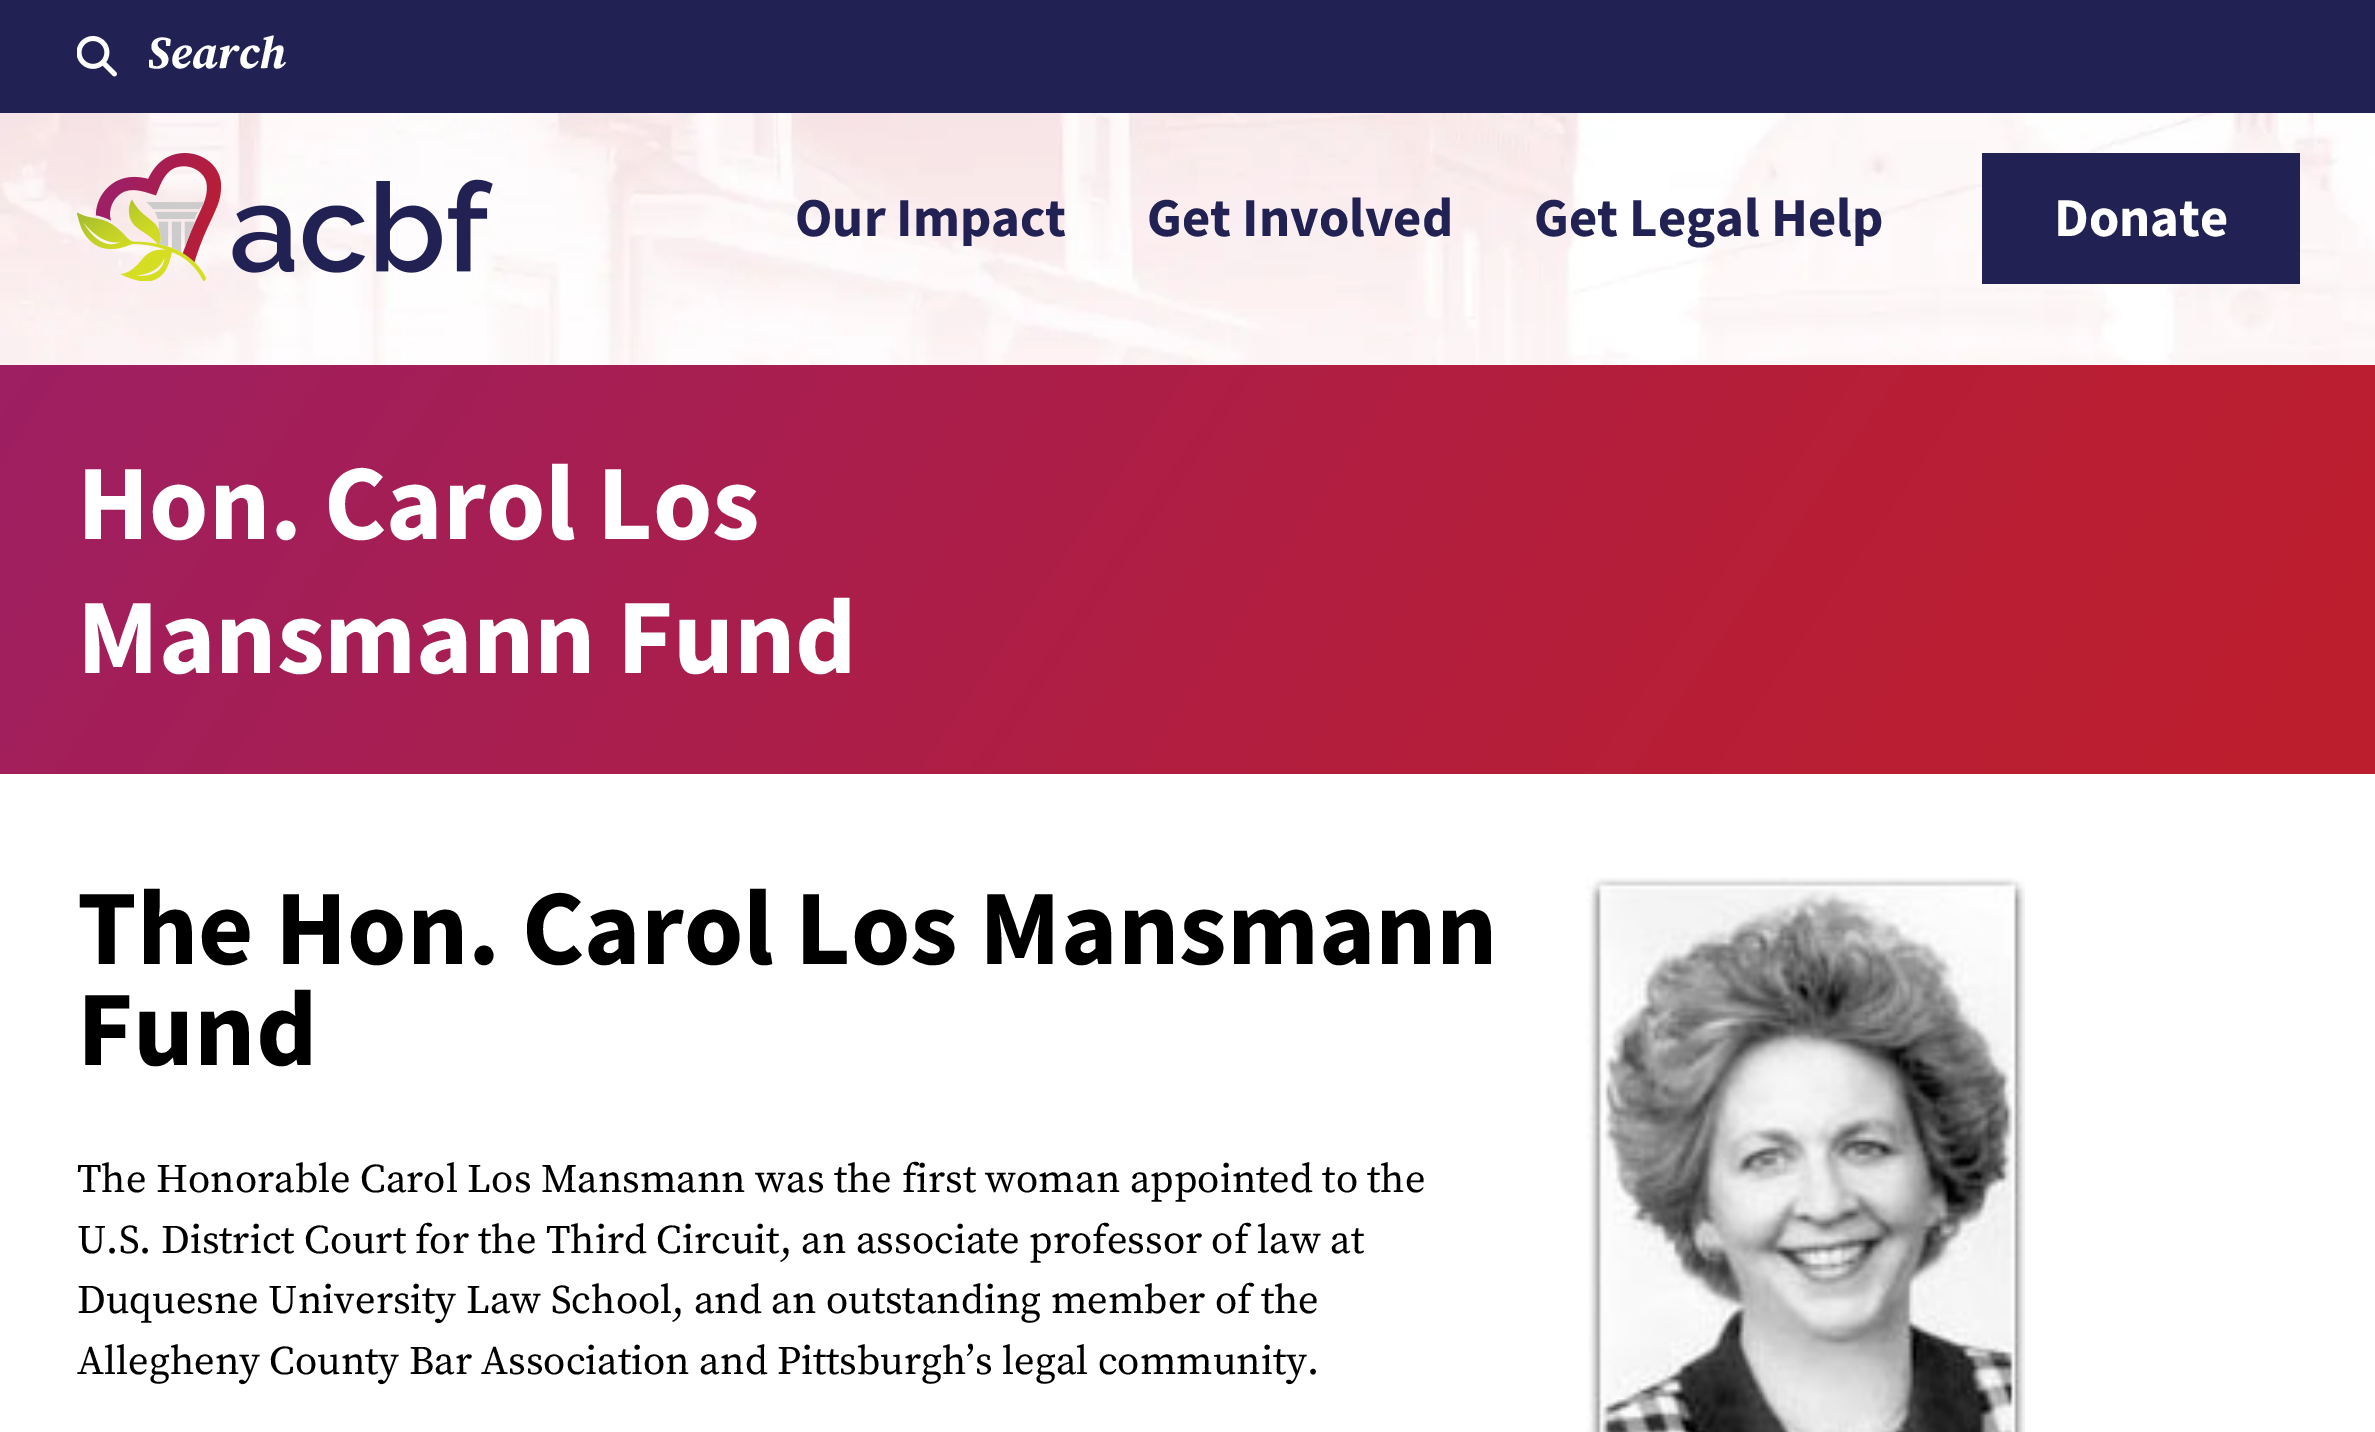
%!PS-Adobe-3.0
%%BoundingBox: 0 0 2375 1432
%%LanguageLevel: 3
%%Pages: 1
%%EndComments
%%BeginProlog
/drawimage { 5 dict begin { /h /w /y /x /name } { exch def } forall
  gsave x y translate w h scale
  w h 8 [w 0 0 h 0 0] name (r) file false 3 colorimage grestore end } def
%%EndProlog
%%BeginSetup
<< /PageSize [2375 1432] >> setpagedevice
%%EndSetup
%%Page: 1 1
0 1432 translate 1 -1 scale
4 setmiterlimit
1 setgray
0 0 2375 1432 rectfill
(images/1.raw) 0 113 2375 252 drawimage
0.129 0.129 0.325 setrgbcolor
0 0 2375 113 rectfill
(images/2.raw) 77 36 40 41 drawimage
(images/3.raw) 77 153 416 128 drawimage
1982 153 318 131 rectfill
gsave newpath 0 365 moveto 2375 365 lineto 2375 774 lineto 0 774 lineto closepath clip newpath
<< /ShadingType 2 /ColorSpace /DeviceRGB /Coords [277 -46 2099 1184] /Extend [true true] /Function << /FunctionType 3 /Domain [0 1] /Functions [<< /FunctionType 2 /Domain [0 1] /C0 [0.62 0.122 0.388] /C1 [0.651 0.118 0.329] /N 1 >> << /FunctionType 2 /Domain [0 1] /C0 [0.651 0.118 0.329] /C1 [0.718 0.118 0.216] /N 1 >> << /FunctionType 2 /Domain [0 1] /C0 [0.718 0.118 0.216] /C1 [0.745 0.118 0.176] /N 1 >>] /Bounds [0.22 0.71] /Encode [0 1 0 1 0 1] >> >> shfill grestore
(images/4.raw) 1586 877 439 555 drawimage
gsave
149 25 600 58 rectclip
/SourceSerifPro-BoldItalic [45.5 0 0 -45.5 0 0] selectfont
1 setgray
147 68 moveto (Search) show
grestore
/SourceSansPro-Bold [54.75 0 0 -54.75 0 0] selectfont
795 236 moveto (Our Impact) show
1147 236 moveto (Get Involved) show
1534 236 moveto (Get Legal Help) show
1 setgray
2054 236 moveto (Donate) show
/SourceSansPro-Bold [107.3 0 0 -107.3 0 0] selectfont
77 539 moveto (Hon. Carol Los) show
77 673 moveto (Mansmann Fund) show
0 setgray
77 964 moveto (The Hon. Carol Los Mansmann) show
77 1065 moveto (Fund) show
/SourceSerifPro-Regular [40.5 0 0 -40.5 0 0] selectfont
77 1192 moveto (The Honorable Carol Los Mansmann was the first woman appointed to the) show
77 1253 moveto (U.S. District Court for the Third Circuit, an associate professor of law at) show
77 1313 moveto (Duquesne University Law School, and an outstanding member of the) show
77 1374 moveto (Allegheny County Bar Association and Pittsburgh’s legal community.) show
showpage
%%EOF
